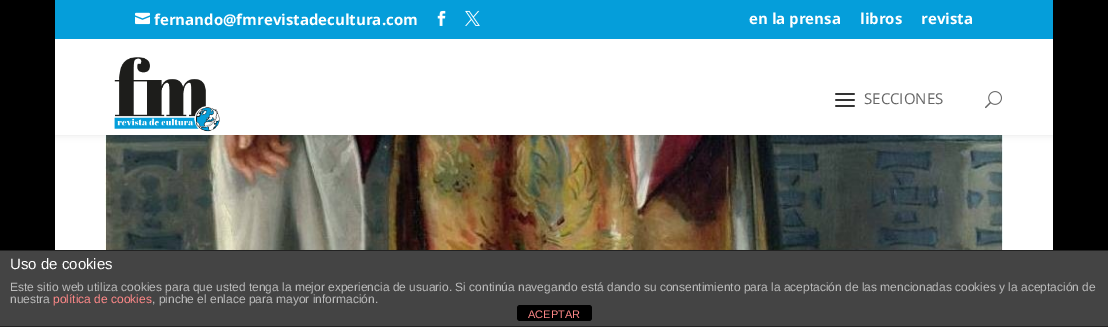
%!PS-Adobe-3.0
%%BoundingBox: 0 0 1108 327
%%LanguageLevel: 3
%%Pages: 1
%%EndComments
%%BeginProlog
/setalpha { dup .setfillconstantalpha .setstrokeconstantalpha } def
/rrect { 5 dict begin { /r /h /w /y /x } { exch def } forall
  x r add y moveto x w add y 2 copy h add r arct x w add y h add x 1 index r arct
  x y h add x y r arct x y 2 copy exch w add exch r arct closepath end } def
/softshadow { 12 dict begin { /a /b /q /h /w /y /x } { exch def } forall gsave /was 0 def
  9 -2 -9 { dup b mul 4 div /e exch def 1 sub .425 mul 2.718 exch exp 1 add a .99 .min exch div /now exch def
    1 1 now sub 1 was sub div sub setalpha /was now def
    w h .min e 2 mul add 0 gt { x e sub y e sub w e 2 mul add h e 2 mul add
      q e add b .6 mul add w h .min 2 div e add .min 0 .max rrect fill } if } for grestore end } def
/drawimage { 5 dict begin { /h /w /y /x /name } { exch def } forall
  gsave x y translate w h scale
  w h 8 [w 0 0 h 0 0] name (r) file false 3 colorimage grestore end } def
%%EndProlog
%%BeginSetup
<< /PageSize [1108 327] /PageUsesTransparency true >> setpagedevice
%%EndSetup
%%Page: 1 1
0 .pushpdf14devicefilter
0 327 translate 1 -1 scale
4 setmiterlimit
0 setgray
0 0 1108 327 rectfill
1 setgray
55 135 998 115 rectfill
(images/7.raw) 105 135 898 115 drawimage
0 setgray
55 39 998 96 0 3.5 0.1 softshadow
0.02 0.62 0.855 setrgbcolor
55 0 998 39 rectfill
(images/1.raw) 135 12 15 13 drawimage
(images/2.raw) 437 10 9 16 drawimage
(images/3.raw) 465 10 15 16 drawimage
1 setgray
55 39 998 96 rectfill
(images/4.raw) 114 57 106 75 drawimage
(images/5.raw) 835 93 20 14 drawimage
(images/6.raw) 985 91 17 18 drawimage
0.267 setgray
0 251 1108 75 rectfill
0.133 setgray
0 250 1108 1 rectfill
0 326 1108 1 rectfill
0 setgray
517 305 75 16 3 rrect fill
/OpenSans-Bold [15 0 0 -15 0 0] selectfont
1 setgray
154 25 moveto (fernando@fmrevistadecultura.com) show
749 24 moveto (en la prensa) show
860 24 moveto (libros) show
921 24 moveto (revista) show
/OpenSans-Regular [15 0 0 -15 0 0] selectfont
0.4 setgray
864 104 moveto (SECCIONES) show
/LiberationSans-Regular [15 0 0 -15 0 0] selectfont
1 setgray
10 269 moveto (Uso de cookies) show
/LiberationSans-Regular [12 0 0 -12 0 0] selectfont
0.733 setgray
10 291 moveto (Este sitio web utiliza cookies para que usted tenga la mejor experiencia de usuario. Si continúa navegando está dando su consentimiento para la aceptación de las mencionadas cookies y la aceptación de) show
10 303 moveto (nuestra) show
1 0.533 0.533 setrgbcolor
53 303 moveto (política de cookies) show
0.733 setgray
152 303 moveto (, pinche el enlace para mayor información.) show
/LiberationSans-Regular [11 0 0 -11 0 0] selectfont
1 0.533 0.533 setrgbcolor
528 318 moveto (ACEPTAR) show
.poppdf14devicefilter showpage
%%EOF
